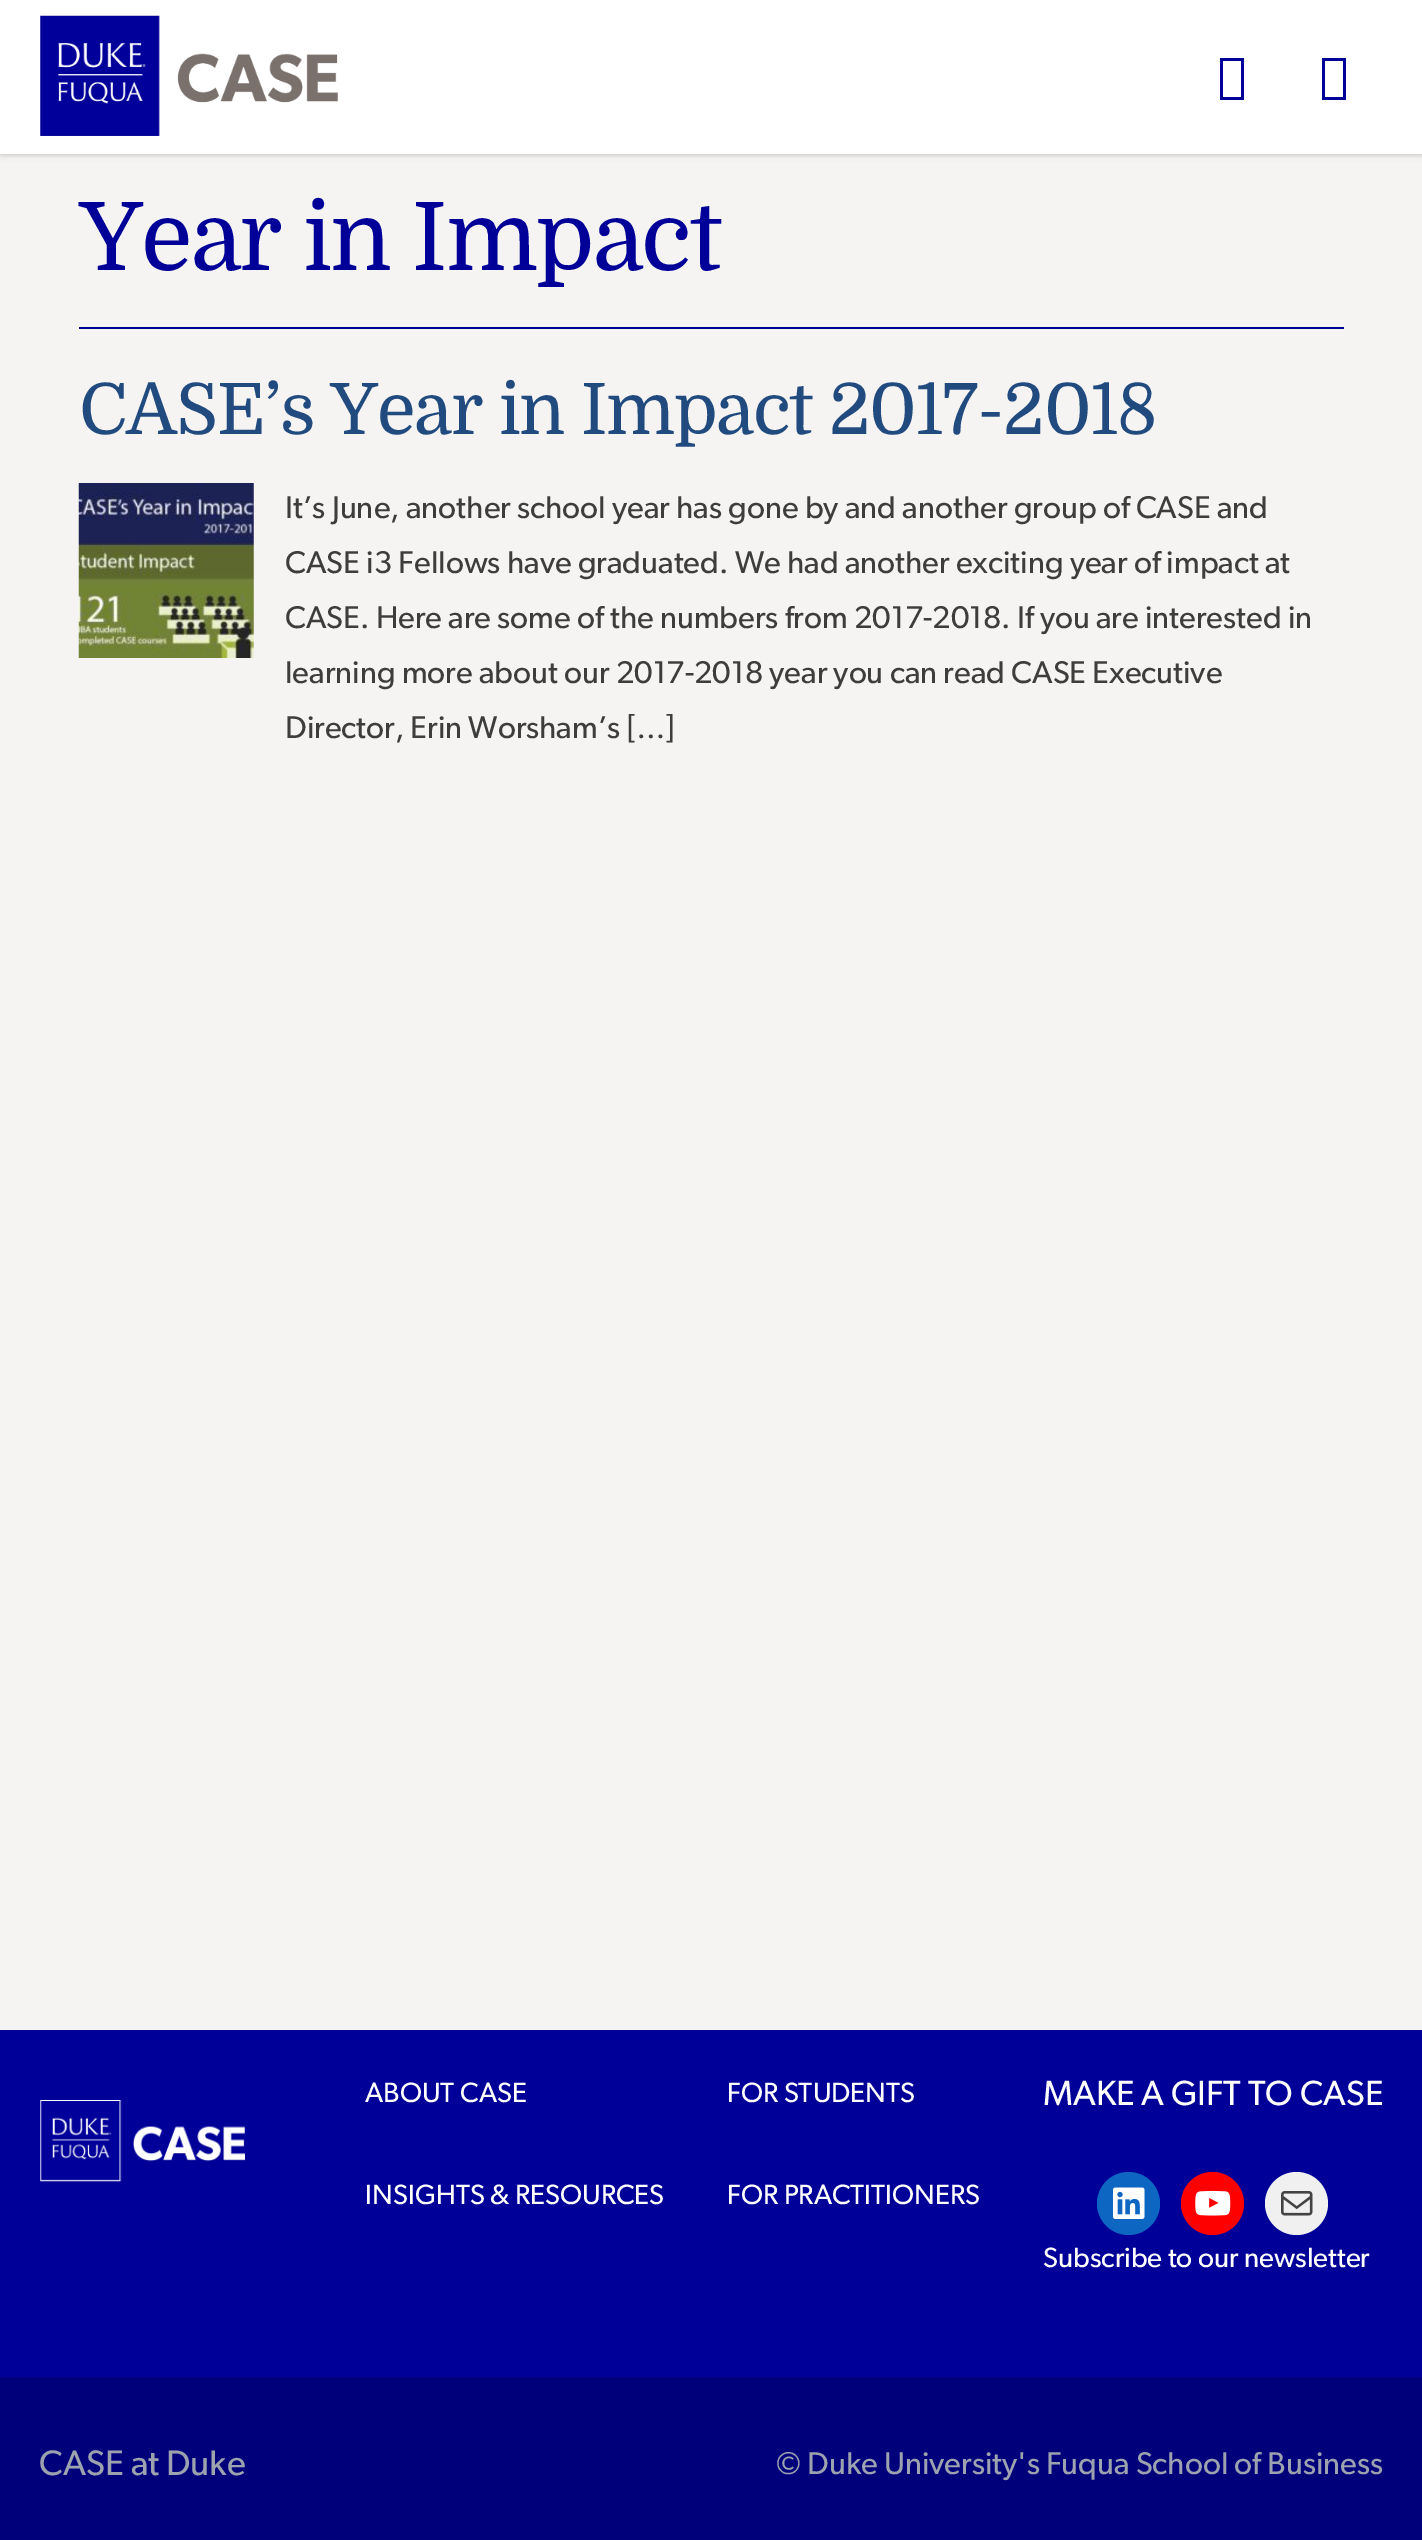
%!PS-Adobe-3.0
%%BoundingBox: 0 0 1422 2540
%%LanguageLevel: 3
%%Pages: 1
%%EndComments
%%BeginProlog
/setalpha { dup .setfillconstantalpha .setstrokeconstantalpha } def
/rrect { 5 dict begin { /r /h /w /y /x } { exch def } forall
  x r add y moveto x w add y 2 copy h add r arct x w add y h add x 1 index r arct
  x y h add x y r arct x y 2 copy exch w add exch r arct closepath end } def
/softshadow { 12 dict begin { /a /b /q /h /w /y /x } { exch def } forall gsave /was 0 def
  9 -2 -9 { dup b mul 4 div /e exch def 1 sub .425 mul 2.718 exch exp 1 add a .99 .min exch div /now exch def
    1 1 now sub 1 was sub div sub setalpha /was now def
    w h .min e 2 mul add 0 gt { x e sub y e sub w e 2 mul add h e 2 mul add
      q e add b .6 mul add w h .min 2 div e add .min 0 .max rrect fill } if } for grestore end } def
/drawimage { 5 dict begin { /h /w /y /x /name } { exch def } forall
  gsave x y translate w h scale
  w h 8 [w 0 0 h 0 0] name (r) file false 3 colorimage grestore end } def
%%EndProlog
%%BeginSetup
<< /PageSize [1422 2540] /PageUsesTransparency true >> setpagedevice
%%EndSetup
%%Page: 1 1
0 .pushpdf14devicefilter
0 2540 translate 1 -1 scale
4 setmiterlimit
0.961 0.957 0.949 setrgbcolor
0 0 1422 2540 rectfill
0 setgray
2 4 1419 150 0 2 0.1 softshadow
0 2 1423 154 0 2.5 0.1 softshadow
1 setgray
0 0 1422 154 rectfill
(images/1.raw) 40 15 298 121 drawimage
0 0 0.6 setrgbcolor
newpath 1220 100 moveto 1220 58 lineto 1244 58 lineto 1244 100 lineto closepath 1223 97 moveto 1241 97 lineto 1241 61 lineto 1223 61 lineto closepath fill
newpath 1322 100 moveto 1322 58 lineto 1346 58 lineto 1346 100 lineto closepath 1325 97 moveto 1343 97 lineto 1343 61 lineto 1325 61 lineto closepath fill
79 327 1265 2 rectfill
(images/2.raw) 78 483 176 175 drawimage
0 2030 1422 347 rectfill
(images/3.raw) 40 2100 205 82 drawimage
0.051 0.4 0.761 setrgbcolor
newpath 1128.5 2203.5 31.5 0 360 arc closepath fill
(images/4.raw) 1113 2187 32 32 drawimage
1 0 0 setrgbcolor
newpath 1212.5 2203.5 31.5 0 360 arc closepath fill
(images/5.raw) 1195 2190 36 26 drawimage
0.941 setgray
newpath 1296.5 2203.5 31.5 0 360 arc closepath fill
(images/6.raw) 1281 2191 32 25 drawimage
0 0 0.478 setrgbcolor
0 2377 1422 163 rectfill
/Domine-Regular [94.5 0 0 -94.5 0 0] selectfont
0 0 0.6 setrgbcolor
79 270 moveto -1.9 0 (Year in Impact) ashow
/Domine-Regular [70.9 0 0 -70.9 0 0] selectfont
0.129 0.294 0.494 setrgbcolor
79 434 moveto -1.4 0 (CASE’s Year in Impact 2017-2018) ashow
/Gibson-Regular [31.5 0 0 -31.5 0 0] selectfont
0.239 setgray
285 518 moveto (It’s June, another school year has gone by and another group of CASE and) show
285 573 moveto (CASE i3 Fellows have graduated. We had another exciting year of impact at) show
285 628 moveto (CASE. Here are some of the numbers from 2017-2018. If you are interested in) show
285 683 moveto (learning more about our 2017-2018 year you can read CASE Executive) show
285 738 moveto (Director, Erin Worsham’s […]) show
/Gibson-Regular [28 0 0 -28 0 0] selectfont
1 setgray
365 2102 moveto (ABOUT CASE) show
365 2204 moveto (INSIGHTS & RESOURCES) show
727 2102 moveto (FOR STUDENTS) show
727 2204 moveto (FOR PRACTITIONERS) show
/Gibson-Regular [35 0 0 -35 0 0] selectfont
1043 2105 moveto (MAKE A GIFT TO CASE) show
/Gibson-Regular [28 0 0 -28 0 0] selectfont
1043 2267 moveto (Subscribe to our newsletter) show
/Gibson-Regular [35.5 0 0 -35.5 0 0] selectfont
0.612 0.639 0.686 setrgbcolor
39 2475 moveto (CASE at Duke) show
/Gibson-Regular [31.5 0 0 -31.5 0 0] selectfont
776 2474 moveto (© Duke University's Fuqua School of Business) show
.poppdf14devicefilter showpage
%%EOF
